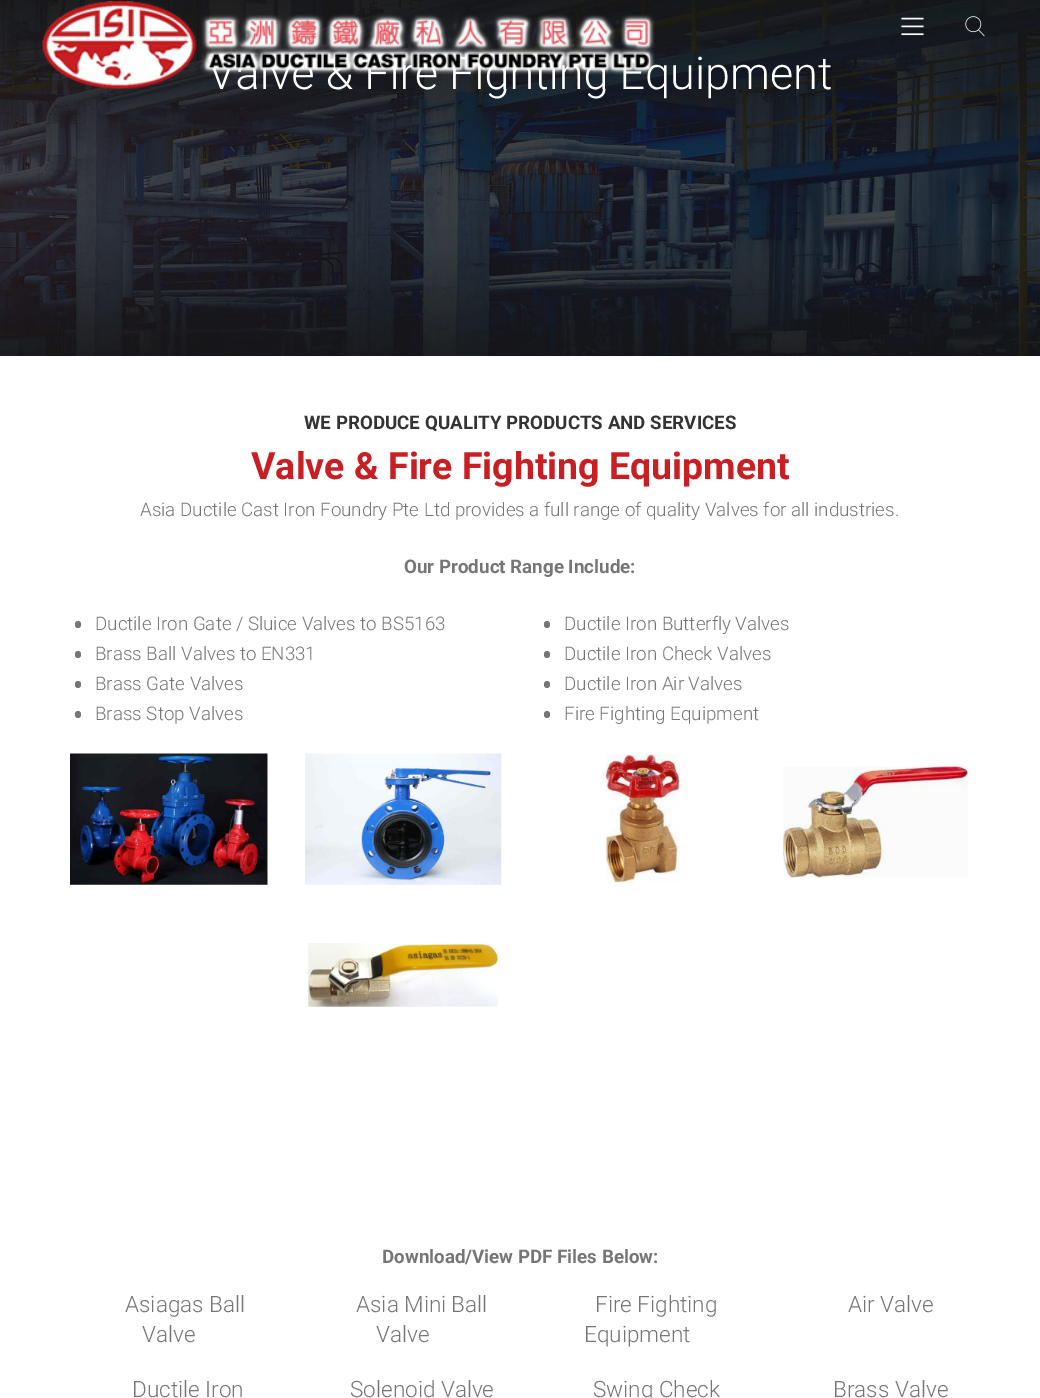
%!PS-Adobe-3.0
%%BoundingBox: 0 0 1040 1398
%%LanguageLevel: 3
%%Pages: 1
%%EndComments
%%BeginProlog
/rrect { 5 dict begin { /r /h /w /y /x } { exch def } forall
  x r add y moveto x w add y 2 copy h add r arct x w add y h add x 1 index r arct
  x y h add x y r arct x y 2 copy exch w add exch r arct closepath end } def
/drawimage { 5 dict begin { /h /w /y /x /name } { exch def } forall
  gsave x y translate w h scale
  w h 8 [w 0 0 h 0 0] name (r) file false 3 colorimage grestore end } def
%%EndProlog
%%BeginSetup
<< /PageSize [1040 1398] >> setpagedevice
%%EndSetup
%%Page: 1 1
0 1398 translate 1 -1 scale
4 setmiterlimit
1 setgray
0 0 1040 1398 rectfill
(images/4.raw) 0 0 1040 356 drawimage
(images/2.raw) 901 17 23 19 drawimage
(images/3.raw) 965 16 20 21 drawimage
0.463 setgray
75 621 6 7 3 rrect fill
75 651 6 7 3 rrect fill
75 681 6 7 3 rrect fill
75 711 6 7 3 rrect fill
544 621 6 7 3 rrect fill
544 651 6 7 3 rrect fill
544 681 6 7 3 rrect fill
544 711 6 7 3 rrect fill
(images/5.raw) 70 753 198 132 drawimage
(images/6.raw) 305 753 197 132 drawimage
(images/7.raw) 601 754 79 129 drawimage
(images/8.raw) 783 766 185 112 drawimage
(images/9.raw) 308 943 190 64 drawimage
/Roboto-Light [45 0 0 -45 0 0] selectfont
1 setgray
208 89 moveto (Valve & Fire Fighting Equipment) show
(images/1.raw) 42 0 613 89 drawimage
/Roboto-Bold [18.75 0 0 -18.75 0 0] selectfont
0.2 setgray
304 429 moveto (WE PRODUCE QUALITY PRODUCTS AND SERVICES) show
/Roboto-Bold [37.5 0 0 -37.5 0 0] selectfont
0.784 0.122 0.141 setrgbcolor
251 479 moveto (Valve & Fire Fighting Equipment) show
/Roboto-Light [18.75 0 0 -18.75 0 0] selectfont
0.463 setgray
140 516 moveto (Asia Ductile Cast Iron Foundry Pte Ltd provides a full range of quality Valves for all industries.) show
/Roboto-Bold [18.75 0 0 -18.75 0 0] selectfont
404 573 moveto (Our Product Range Include:) show
/Roboto-Light [18.75 0 0 -18.75 0 0] selectfont
95 630 moveto (Ductile Iron Gate / Sluice Valves to BS5163) show
95 660 moveto (Brass Ball Valves to EN331) show
95 690 moveto (Brass Gate Valves) show
95 720 moveto (Brass Stop Valves) show
564 630 moveto (Ductile Iron Butterfly Valves) show
564 660 moveto (Ductile Iron Check Valves) show
564 690 moveto (Ductile Iron Air Valves) show
564 720 moveto (Fire Fighting Equipment) show
/Roboto-Bold [18.75 0 0 -18.75 0 0] selectfont
382 1263 moveto (Download/View PDF Files Below:) show
/Roboto-Light [22.5 0 0 -22.5 0 0] selectfont
125 1312 moveto (Asiagas Ball) show
142 1342 moveto (Valve) show
356 1312 moveto (Asia Mini Ball) show
376 1342 moveto (Valve) show
595 1312 moveto (Fire Fighting) show
584 1342 moveto (Equipment) show
848 1312 moveto (Air Valve) show
132 1397 moveto (Ductile Iron) show
350 1397 moveto (Solenoid Valve) show
593 1397 moveto (Swing Check) show
833 1397 moveto (Brass Valve) show
showpage
%%EOF
